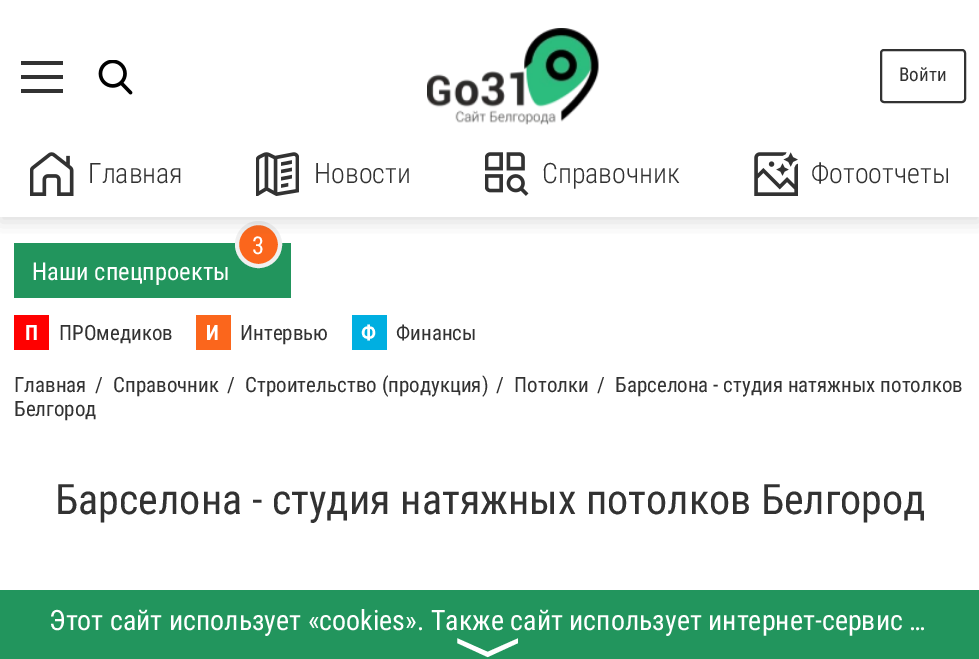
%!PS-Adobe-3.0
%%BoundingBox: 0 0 979 659
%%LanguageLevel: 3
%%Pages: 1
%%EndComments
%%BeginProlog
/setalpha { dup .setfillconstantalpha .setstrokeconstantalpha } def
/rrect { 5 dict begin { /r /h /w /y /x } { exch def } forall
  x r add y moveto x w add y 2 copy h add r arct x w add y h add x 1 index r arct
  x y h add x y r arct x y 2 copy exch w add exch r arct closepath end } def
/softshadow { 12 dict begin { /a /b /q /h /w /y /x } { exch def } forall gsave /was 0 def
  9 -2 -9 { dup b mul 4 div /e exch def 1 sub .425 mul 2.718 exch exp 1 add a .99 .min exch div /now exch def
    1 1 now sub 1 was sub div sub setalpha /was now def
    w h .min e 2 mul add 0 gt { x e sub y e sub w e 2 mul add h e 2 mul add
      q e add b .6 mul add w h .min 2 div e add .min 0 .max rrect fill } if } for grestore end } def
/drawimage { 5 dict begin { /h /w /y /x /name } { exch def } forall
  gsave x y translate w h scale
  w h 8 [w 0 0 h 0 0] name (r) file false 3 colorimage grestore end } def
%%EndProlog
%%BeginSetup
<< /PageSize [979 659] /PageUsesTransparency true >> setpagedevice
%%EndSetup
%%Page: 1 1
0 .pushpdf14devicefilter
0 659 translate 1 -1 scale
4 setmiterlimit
1 setgray
0 0 979 659 rectfill
0.133 0.584 0.365 setrgbcolor
14 243 277 55 rectfill
0.984 0.4 0.11 setrgbcolor
newpath 258.5 244.5 21.5 0 360 arc closepath gsave fill grestore
0.941 setgray
4 setlinewidth
stroke
gsave
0 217 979 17 rectclip
0.306 setgray
0 5 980 217 0 9 0.2 softshadow
grestore
0.196 setgray
21 75 42 4 rectfill
21 61 42 4 rectfill
21 89 42 4 rectfill
(images/1.raw) 98 60 35 35 drawimage
(images/2.raw) 427 28 172 97 drawimage
2 setlinewidth
881 50 84 52 3 rrect stroke
(images/3.raw) 30 152 44 44 drawimage
(images/4.raw) 256 152 43 44 drawimage
(images/5.raw) 485 152 44 44 drawimage
(images/6.raw) 754 152 44 44 drawimage
1 0 0 setrgbcolor
14 315 35 35 rectfill
0.984 0.4 0.11 setrgbcolor
196 315 35 35 rectfill
0 0.686 0.882 setrgbcolor
352 315 35 35 rectfill
0.133 0.584 0.365 setrgbcolor
0 590 979 69 rectfill
/RobotoCondensed-Regular [19 0 0 -19 0 0] selectfont
0.196 setgray
899 81 moveto (Войти) show
/RobotoCondensed-Light [28 0 0 -28 0 0] selectfont
88 183 moveto (Главная) show
314 183 moveto (Новости) show
542 183 moveto (Справочник) show
811 183 moveto (Фотоотчеты) show
/RobotoCondensed-Regular [24.5 0 0 -24.5 0 0] selectfont
1 setgray
252 254 moveto (3) show
32 280 moveto (Наши спецпроекты) show
/RobotoCondensed-Bold [21 0 0 -21 0 0] selectfont
25 340 moveto (П) show
/RobotoCondensed-Regular [21 0 0 -21 0 0] selectfont
0.196 setgray
59 340 moveto (ПРОмедиков) show
/RobotoCondensed-Bold [21 0 0 -21 0 0] selectfont
1 setgray
206 340 moveto (И) show
/RobotoCondensed-Regular [21 0 0 -21 0 0] selectfont
0.196 setgray
240 340 moveto (Интервью) show
/RobotoCondensed-Bold [21 0 0 -21 0 0] selectfont
1 setgray
361 340 moveto (Ф) show
/RobotoCondensed-Regular [21 0 0 -21 0 0] selectfont
0.196 setgray
396 340 moveto (Финансы) show
14 392 moveto (Главная) show
95 392 moveto (/) show
113 392 moveto (Справочник) show
227 392 moveto (/) show
245 392 moveto (Строительство \(продукция\)) show
496 392 moveto (/) show
514 392 moveto (Потолки) show
597 392 moveto (/) show
615 392 moveto (Барселона - студия натяжных потолков) show
14 416 moveto (Белгород) show
/RobotoCondensed-Regular [42 0 0 -42 0 0] selectfont
55 514 moveto (Барселона - студия натяжных потолков Белгород) show
/RobotoCondensed-Regular [28 0 0 -28 0 0] selectfont
1 setgray
49 630 moveto (Этот сайт использует «cookies». Также сайт использует интернет-сервис …) show
/FreeSans-Regular [70 0 0 -70 0 0] selectfont
gsave 467 636 translate 90 rotate 0 0 moveto (〉) show grestore
.poppdf14devicefilter showpage
%%EOF
